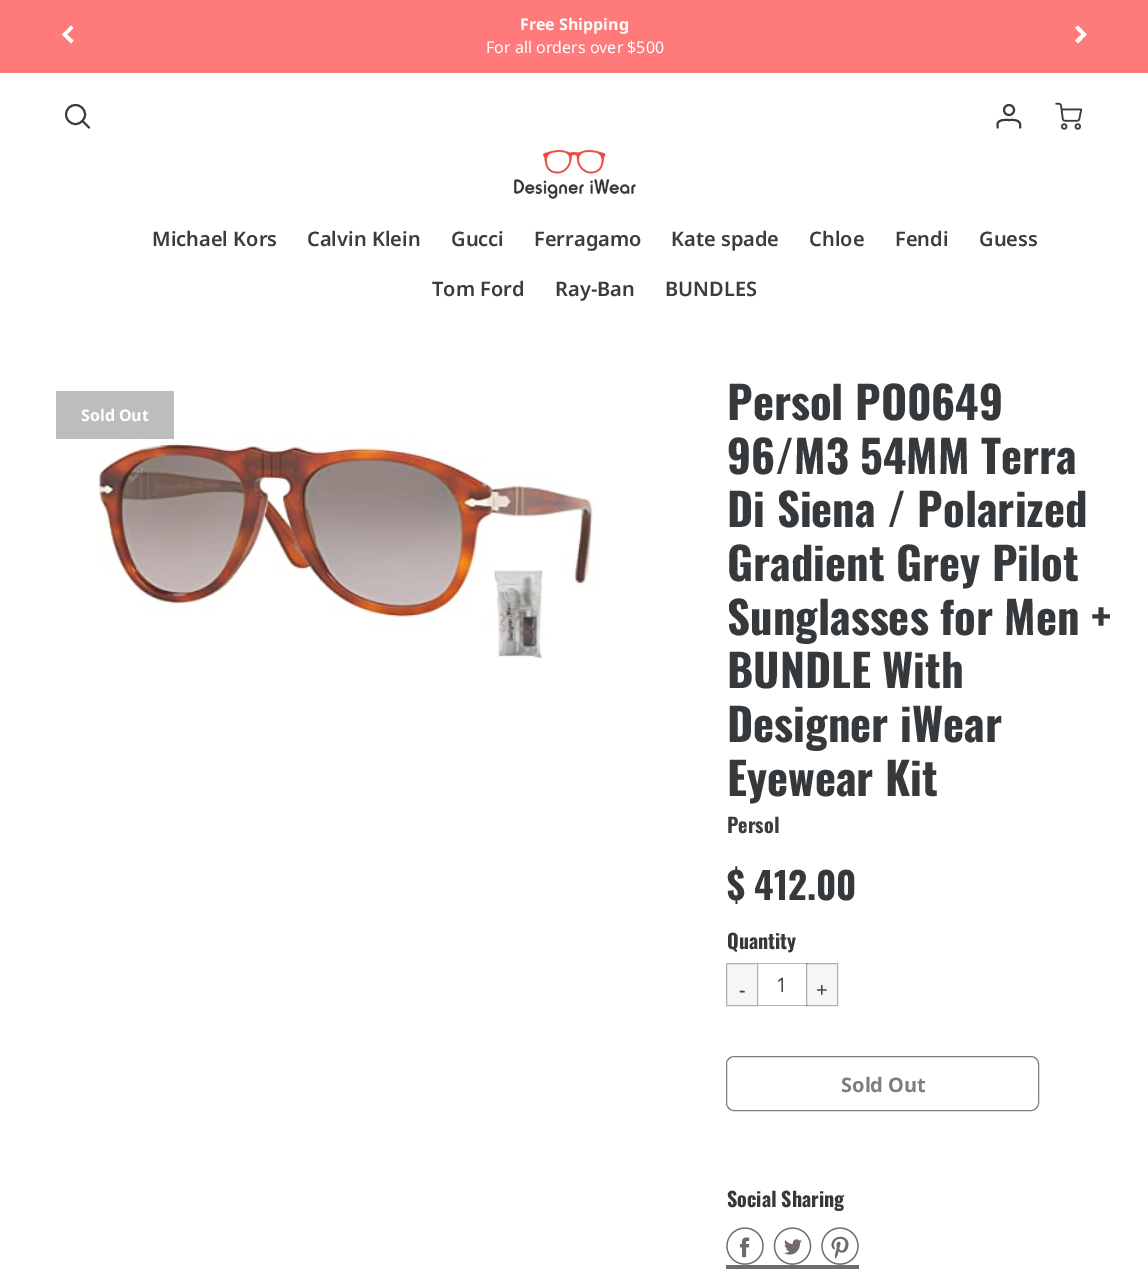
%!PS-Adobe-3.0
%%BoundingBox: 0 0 1148 1285
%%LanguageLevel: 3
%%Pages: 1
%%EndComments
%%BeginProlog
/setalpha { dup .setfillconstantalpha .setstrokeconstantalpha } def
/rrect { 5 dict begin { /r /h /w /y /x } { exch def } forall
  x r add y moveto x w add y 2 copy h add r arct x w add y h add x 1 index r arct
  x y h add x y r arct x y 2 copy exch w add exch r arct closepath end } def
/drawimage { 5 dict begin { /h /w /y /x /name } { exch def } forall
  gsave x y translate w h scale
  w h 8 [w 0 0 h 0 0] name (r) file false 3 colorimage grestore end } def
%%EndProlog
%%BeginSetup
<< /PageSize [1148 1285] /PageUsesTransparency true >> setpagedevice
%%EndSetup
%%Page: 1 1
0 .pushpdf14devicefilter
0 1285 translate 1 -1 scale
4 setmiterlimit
1 setgray
0 0 1148 1285 rectfill
0.965 setgray
806 963 32 43 rectfill
1 0.478 0.478 setrgbcolor
0 0 1148 73 rectfill
1 setgray
newpath 71 43.5 moveto 62 34.5 lineto 64.5 32 lineto 73.5 40.5 lineto closepath fill
newpath 64.5 37 moveto 62 34.5 lineto 71 25.5 lineto 73.5 28 lineto closepath fill
newpath 1078 25.5 moveto 1086.5 34.5 lineto 1084 37 lineto 1075 28 lineto closepath fill
newpath 1084 32 moveto 1086.5 34.5 lineto 1078 43.5 lineto 1075 40.5 lineto closepath fill
0.235 setgray
2 setlinewidth
newpath 75.5 114.5 9.5 0 360 arc closepath stroke
1 setlinecap
1 setlinejoin
newpath 89 127.5 moveto 82.5 121 lineto stroke
0 setlinecap
0 setlinejoin
newpath 1009 110 5 0 360 arc closepath stroke
1 setlinecap
1 setlinejoin
newpath 1020 127.5 moveto 1020 124 lineto 1019 119 1012.5 120 1009 120 curveto 1005 120 998.5 119 997.5 124 curveto 997.5 127.5 lineto stroke
(images/1.raw) 1055 102 28 28 drawimage
(images/2.raw) 513 149 123 50 drawimage
(images/3.raw) 99 438 502 221 drawimage
0.741 setgray
56 391 118 48 rectfill
0.965 setgray
newpath 726.5 963.5 moveto 757.5 963.5 lineto 757.5 1005.5 lineto 726.5 1005.5 lineto closepath gsave fill grestore
0.686 setgray
1 setlinewidth
0 setlinecap
0 setlinejoin
stroke
0.706 setgray
758 963 50 1 rectfill
0.686 setgray
806 963 2 1 rectfill
0.706 setgray
758 1005 50 1 rectfill
0.686 setgray
806 1005 2 1 rectfill
0.4 setalpha
0.267 setgray
806.5 963.5 31 42 rectstroke
1 setalpha
0.486 0.494 0.506 setrgbcolor
726.5 1056.5 312 54 7.5 rrect stroke
(images/4.raw) 726 1227 38 38 drawimage
(images/5.raw) 773 1227 39 38 drawimage
(images/6.raw) 821 1227 38 38 drawimage
0.447 0.416 0.416 setrgbcolor
726 1265 133 4 rectfill
/NotoSans-Bold [16 0 0 -16 0 0] selectfont
1 setgray
520 30 moveto (Free Shipping) show
/NotoSans-Regular [16 0 0 -16 0 0] selectfont
486 53 moveto (For all orders over $500) show
/NotoSans-SemiBold [20 0 0 -20 0 0] selectfont
0.235 setgray
152 246 moveto (Michael Kors) show
307 246 moveto (Calvin Klein) show
451 246 moveto (Gucci) show
534 246 moveto (Ferragamo) show
671 246 moveto (Kate spade) show
809 246 moveto (Chloe) show
895 246 moveto (Fendi) show
979 246 moveto (Guess) show
432 296 moveto (Tom Ford) show
555 296 moveto (Ray-Ban) show
665 296 moveto (BUNDLES) show
/NotoSans-Bold [16 0 0 -16 0 0] selectfont
1 setgray
81 421 moveto (Sold Out) show
/Oswald-Bold [44.75 0 0 -44.75 0 0] selectfont
0.208 0.224 0.235 setrgbcolor
727 420 moveto (Persol PO0649) show
727 474 moveto (96/M3 54MM Terra) show
727 527 moveto (Di Siena / Polarized) show
727 581 moveto (Gradient Grey Pilot) show
727 635 moveto (Sunglasses for Men +) show
727 688 moveto (BUNDLE With) show
727 742 moveto (Designer iWear) show
727 796 moveto (Eyewear Kit) show
/Oswald-Bold [20 0 0 -20 0 0] selectfont
0.235 setgray
727 833 moveto (Persol) show
/Oswald-Bold [37 0 0 -37 0 0] selectfont
0.208 0.224 0.235 setrgbcolor
727 900 moveto ($ 412.00) show
/Oswald-Bold [20 0 0 -20 0 0] selectfont
727 949 moveto (Quantity) show
/NotoSans-Regular [20 0 0 -20 0 0] selectfont
0.267 setgray
739 997 moveto (-) show
776 992 moveto (1) show
816 997 moveto (+) show
/NotoSans-Bold [20 0 0 -20 0 0] selectfont
0.486 0.494 0.506 setrgbcolor
841 1092 moveto (Sold Out) show
/Oswald-Bold [20 0 0 -20 0 0] selectfont
0.208 0.224 0.235 setrgbcolor
727 1207 moveto (Social Sharing) show
.poppdf14devicefilter showpage
%%EOF
